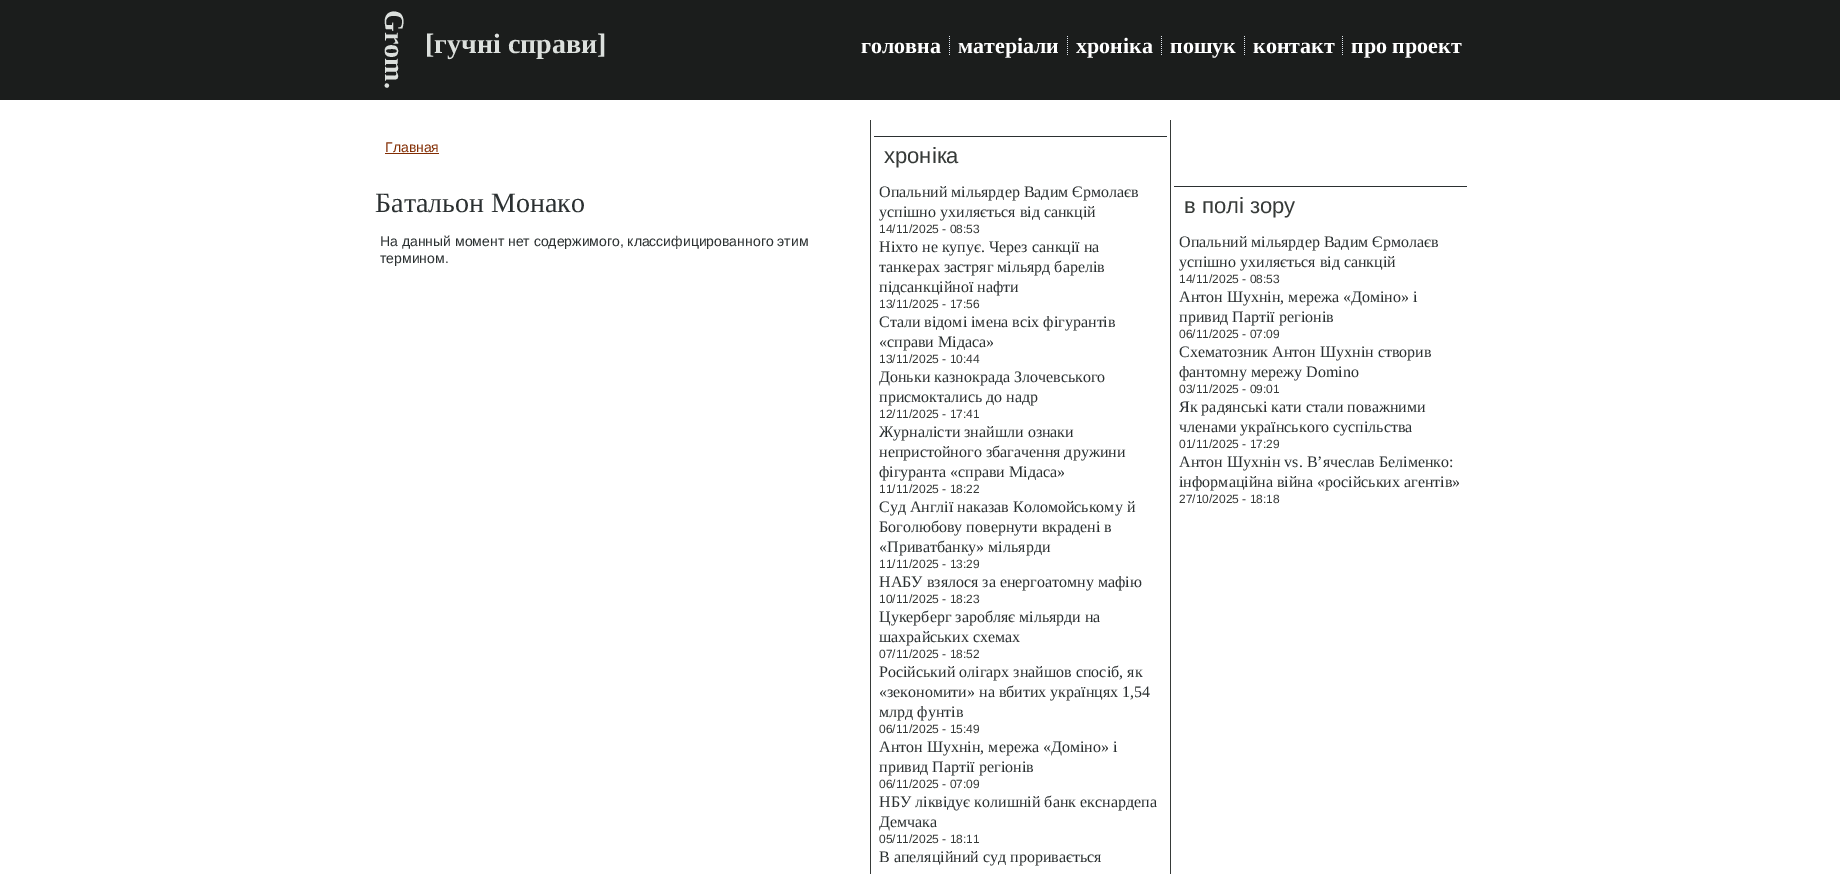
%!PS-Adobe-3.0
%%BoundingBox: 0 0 1840 874
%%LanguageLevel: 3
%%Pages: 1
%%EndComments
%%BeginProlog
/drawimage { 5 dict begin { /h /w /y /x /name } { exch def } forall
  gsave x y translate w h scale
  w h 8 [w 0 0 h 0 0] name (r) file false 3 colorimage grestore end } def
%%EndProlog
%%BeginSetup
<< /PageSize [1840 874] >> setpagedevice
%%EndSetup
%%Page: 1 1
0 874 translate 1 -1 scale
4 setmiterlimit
1 setgray
0 0 1840 874 rectfill
0.106 0.114 0.11 setrgbcolor
0 0 1840 100 rectfill
(images/1.raw) 949 36 1 19 drawimage
(images/1.raw) 1067 36 1 19 drawimage
(images/1.raw) 1161 36 1 19 drawimage
(images/1.raw) 1244 36 1 19 drawimage
(images/1.raw) 1342 36 1 19 drawimage
0.51 0.176 0.012 setrgbcolor
385 153 54 1 rectfill
0.212 0.227 0.22 setrgbcolor
870 120 1 754 rectfill
0.169 0.188 0.192 setrgbcolor
874 136 293 1 rectfill
0.212 0.227 0.22 setrgbcolor
1170 120 1 754 rectfill
0.169 0.188 0.192 setrgbcolor
1174 186 293 1 rectfill
/LiberationSerif-Bold [28 0 0 -28 0 0] selectfont
0.863 0.878 0.867 setrgbcolor
gsave 385 10 translate 90 rotate 0 0 moveto (Grom.) show grestore
425 53 moveto ([гучні справи]) show
/LiberationSerif-Bold [22 0 0 -22 0 0] selectfont
1 setgray
861 53 moveto (головна) show
958 53 moveto (матеріали) show
1076 53 moveto (хроніка) show
1170 53 moveto (пошук) show
1253 53 moveto (контакт) show
1351 53 moveto (про проект) show
/LiberationSans-Regular [14 0 0 -14 0 0] selectfont
0.51 0.176 0.012 setrgbcolor
385 152 moveto (Главная) show
/LiberationSerif-Regular [28 0 0 -28 0 0] selectfont
0.169 0.188 0.192 setrgbcolor
375 212 moveto (Батальон Монако) show
/LiberationSans-Regular [14 0 0 -14 0 0] selectfont
380 246 moveto (На данный момент нет содержимого, классифицированного этим) show
380 263 moveto (термином.) show
/LiberationSans-Regular [22 0 0 -22 0 0] selectfont
0.212 0.227 0.22 setrgbcolor
884 163 moveto (хроніка) show
/LiberationSerif-Regular [16 0 0 -16 0 0] selectfont
0.169 0.188 0.192 setrgbcolor
879 197 moveto (Опальний мільярдер Вадим Єрмолаєв) show
879 217 moveto (успішно ухиляється від санкцій) show
/LiberationSans-Regular [12 0 0 -12 0 0] selectfont
0.212 0.227 0.22 setrgbcolor
879 233 moveto (14/11/2025 - 08:53) show
/LiberationSerif-Regular [16 0 0 -16 0 0] selectfont
0.169 0.188 0.192 setrgbcolor
879 252 moveto (Ніхто не купує. Через санкції на) show
879 272 moveto (танкерах застряг мільярд барелів) show
879 292 moveto (підсанкційної нафти) show
/LiberationSans-Regular [12 0 0 -12 0 0] selectfont
0.212 0.227 0.22 setrgbcolor
879 308 moveto (13/11/2025 - 17:56) show
/LiberationSerif-Regular [16 0 0 -16 0 0] selectfont
0.169 0.188 0.192 setrgbcolor
879 327 moveto (Стали відомі імена всіх фігурантів) show
879 347 moveto («справи Мідаса») show
/LiberationSans-Regular [12 0 0 -12 0 0] selectfont
0.212 0.227 0.22 setrgbcolor
879 363 moveto (13/11/2025 - 10:44) show
/LiberationSerif-Regular [16 0 0 -16 0 0] selectfont
0.169 0.188 0.192 setrgbcolor
879 382 moveto (Доньки казнокрада Злочевського) show
879 402 moveto (присмоктались до надр) show
/LiberationSans-Regular [12 0 0 -12 0 0] selectfont
0.212 0.227 0.22 setrgbcolor
879 418 moveto (12/11/2025 - 17:41) show
/LiberationSerif-Regular [16 0 0 -16 0 0] selectfont
0.169 0.188 0.192 setrgbcolor
879 437 moveto (Журналісти знайшли ознаки) show
879 457 moveto (непристойного збагачення дружини) show
879 477 moveto (фігуранта «справи Мідаса») show
/LiberationSans-Regular [12 0 0 -12 0 0] selectfont
0.212 0.227 0.22 setrgbcolor
879 493 moveto (11/11/2025 - 18:22) show
/LiberationSerif-Regular [16 0 0 -16 0 0] selectfont
0.169 0.188 0.192 setrgbcolor
879 512 moveto (Суд Англії наказав Коломойському й) show
879 532 moveto (Боголюбову повернути вкрадені в) show
879 552 moveto («Приватбанку» мільярди) show
/LiberationSans-Regular [12 0 0 -12 0 0] selectfont
0.212 0.227 0.22 setrgbcolor
879 568 moveto (11/11/2025 - 13:29) show
/LiberationSerif-Regular [16 0 0 -16 0 0] selectfont
0.169 0.188 0.192 setrgbcolor
879 587 moveto (НАБУ взялося за енергоатомну мафію) show
/LiberationSans-Regular [12 0 0 -12 0 0] selectfont
0.212 0.227 0.22 setrgbcolor
879 603 moveto (10/11/2025 - 18:23) show
/LiberationSerif-Regular [16 0 0 -16 0 0] selectfont
0.169 0.188 0.192 setrgbcolor
879 622 moveto (Цукерберг заробляє мільярди на) show
879 642 moveto (шахрайських схемах) show
/LiberationSans-Regular [12 0 0 -12 0 0] selectfont
0.212 0.227 0.22 setrgbcolor
879 658 moveto (07/11/2025 - 18:52) show
/LiberationSerif-Regular [16 0 0 -16 0 0] selectfont
0.169 0.188 0.192 setrgbcolor
879 677 moveto (Російський олігарх знайшов спосіб, як) show
879 697 moveto («зекономити» на вбитих українцях 1,54) show
879 717 moveto (млрд фунтів) show
/LiberationSans-Regular [12 0 0 -12 0 0] selectfont
0.212 0.227 0.22 setrgbcolor
879 733 moveto (06/11/2025 - 15:49) show
/LiberationSerif-Regular [16 0 0 -16 0 0] selectfont
0.169 0.188 0.192 setrgbcolor
879 752 moveto (Антон Шухнін, мережа «Доміно» і) show
879 772 moveto (привид Партії регіонів) show
/LiberationSans-Regular [12 0 0 -12 0 0] selectfont
0.212 0.227 0.22 setrgbcolor
879 788 moveto (06/11/2025 - 07:09) show
/LiberationSerif-Regular [16 0 0 -16 0 0] selectfont
0.169 0.188 0.192 setrgbcolor
879 807 moveto (НБУ ліквідує колишній банк екснардепа) show
879 827 moveto (Демчака) show
/LiberationSans-Regular [12 0 0 -12 0 0] selectfont
0.212 0.227 0.22 setrgbcolor
879 843 moveto (05/11/2025 - 18:11) show
/LiberationSerif-Regular [16 0 0 -16 0 0] selectfont
0.169 0.188 0.192 setrgbcolor
879 862 moveto (В апеляційний суд проривається) show
/LiberationSans-Regular [22 0 0 -22 0 0] selectfont
0.212 0.227 0.22 setrgbcolor
1184 213 moveto (в полі зору) show
/LiberationSerif-Regular [16 0 0 -16 0 0] selectfont
0.169 0.188 0.192 setrgbcolor
1179 247 moveto (Опальний мільярдер Вадим Єрмолаєв) show
1179 267 moveto (успішно ухиляється від санкцій) show
/LiberationSans-Regular [12 0 0 -12 0 0] selectfont
0.212 0.227 0.22 setrgbcolor
1179 283 moveto (14/11/2025 - 08:53) show
/LiberationSerif-Regular [16 0 0 -16 0 0] selectfont
0.169 0.188 0.192 setrgbcolor
1179 302 moveto (Антон Шухнін, мережа «Доміно» і) show
1179 322 moveto (привид Партії регіонів) show
/LiberationSans-Regular [12 0 0 -12 0 0] selectfont
0.212 0.227 0.22 setrgbcolor
1179 338 moveto (06/11/2025 - 07:09) show
/LiberationSerif-Regular [16 0 0 -16 0 0] selectfont
0.169 0.188 0.192 setrgbcolor
1179 357 moveto (Схематозник Антон Шухнін створив) show
1179 377 moveto (фантомну мережу Domino) show
/LiberationSans-Regular [12 0 0 -12 0 0] selectfont
0.212 0.227 0.22 setrgbcolor
1179 393 moveto (03/11/2025 - 09:01) show
/LiberationSerif-Regular [16 0 0 -16 0 0] selectfont
0.169 0.188 0.192 setrgbcolor
1179 412 moveto (Як радянські кати стали поважними) show
1179 432 moveto (членами українського суспільства) show
/LiberationSans-Regular [12 0 0 -12 0 0] selectfont
0.212 0.227 0.22 setrgbcolor
1179 448 moveto (01/11/2025 - 17:29) show
/LiberationSerif-Regular [16 0 0 -16 0 0] selectfont
0.169 0.188 0.192 setrgbcolor
1179 467 moveto (Антон Шухнін vs. В’ячеслав Беліменко:) show
1179 487 moveto (інформаційна війна «російських агентів») show
/LiberationSans-Regular [12 0 0 -12 0 0] selectfont
0.212 0.227 0.22 setrgbcolor
1179 503 moveto (27/10/2025 - 18:18) show
showpage
%%EOF
